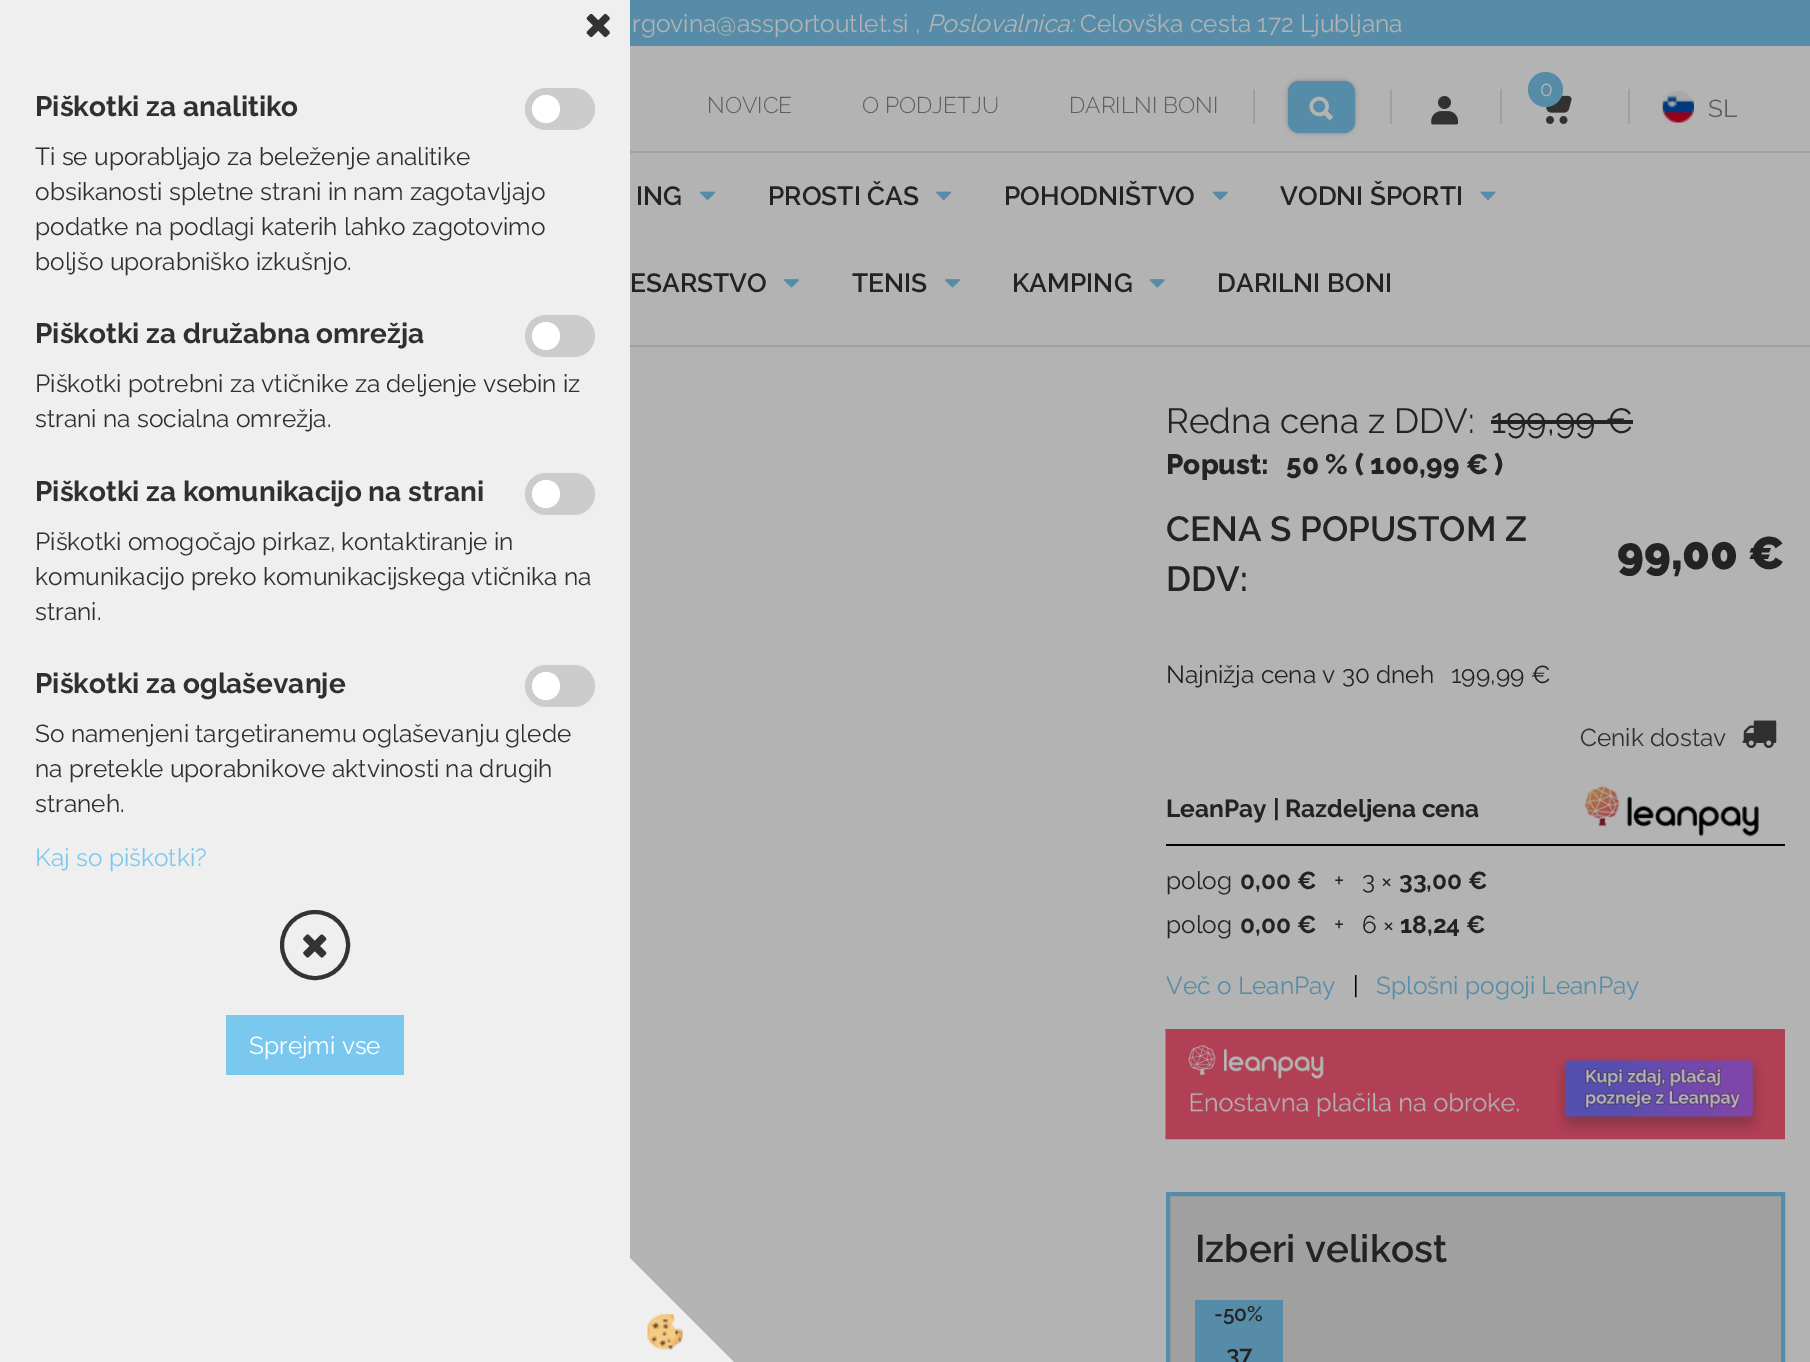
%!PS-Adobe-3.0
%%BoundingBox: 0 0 1810 1362
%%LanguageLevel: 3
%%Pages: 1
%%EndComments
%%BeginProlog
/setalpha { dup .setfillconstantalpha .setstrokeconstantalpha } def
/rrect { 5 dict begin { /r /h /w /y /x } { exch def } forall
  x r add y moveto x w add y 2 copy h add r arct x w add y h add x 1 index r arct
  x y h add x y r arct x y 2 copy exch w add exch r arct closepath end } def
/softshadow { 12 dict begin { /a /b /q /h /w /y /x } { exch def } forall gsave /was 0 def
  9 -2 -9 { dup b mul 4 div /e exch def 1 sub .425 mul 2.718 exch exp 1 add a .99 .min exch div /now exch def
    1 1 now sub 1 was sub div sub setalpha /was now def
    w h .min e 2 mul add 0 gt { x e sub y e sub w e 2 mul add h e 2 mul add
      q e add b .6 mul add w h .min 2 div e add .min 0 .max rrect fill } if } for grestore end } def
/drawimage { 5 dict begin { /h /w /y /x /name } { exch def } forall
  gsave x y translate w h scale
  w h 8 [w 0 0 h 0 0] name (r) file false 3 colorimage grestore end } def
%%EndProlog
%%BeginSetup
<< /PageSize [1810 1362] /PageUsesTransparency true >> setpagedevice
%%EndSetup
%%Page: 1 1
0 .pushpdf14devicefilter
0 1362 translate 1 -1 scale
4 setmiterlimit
0.702 setgray
0 0 1810 1362 rectfill
0.937 setgray
0 0 630 1362 rectfill
(images/1.raw) 586 13 24 25 drawimage
0.8 setgray
525 88 70 42 21 rrect fill
1 setgray
newpath 546 109 14 0 360 arc closepath fill
0.8 setgray
525 315 70 42 21 rrect fill
1 setgray
newpath 546 336 14 0 360 arc closepath fill
0.8 setgray
525 473 70 42 21 rrect fill
1 setgray
newpath 546 494 14 0 360 arc closepath fill
0.8 setgray
525 665 70 42 21 rrect fill
1 setgray
newpath 546 686 14 0 360 arc closepath fill
0.2 setgray
4 setlinewidth
newpath 315 945 33 0 360 arc closepath stroke
(images/2.raw) 303 934 24 24 drawimage
0.482 0.784 0.937 setrgbcolor
226 1015 178 60 rectfill
0.937 setgray
newpath 735 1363 moveto 630 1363 lineto 630 1258 lineto closepath fill
(images/3.raw) 647 1313 36 37 drawimage
0.627 setgray
630 345 1180 2 rectfill
0.337 0.549 0.655 setrgbcolor
630 0 1180 46 rectfill
0.627 setgray
630 151 1180 2 rectfill
1253 89 2 35 rectfill
0.141 0.133 0.137 setrgbcolor
1288 81 67 52 11 2.5 0.3 softshadow
0.337 0.549 0.655 setrgbcolor
1288 81 67 52 11 rrect fill
(images/4.raw) 1309 96 24 25 drawimage
0.627 setgray
1390 89 2 35 rectfill
(images/5.raw) 1431 96 28 29 drawimage
1500 89 2 35 rectfill
(images/6.raw) 1546 95 26 29 drawimage
0.337 0.549 0.655 setrgbcolor
newpath 1545.5 89.5 17.5 0 360 arc closepath fill
0.627 setgray
1628 89 2 35 rectfill
(images/7.raw) 1662 91 32 32 drawimage
(images/8.raw) 700 191 15 9 drawimage
(images/9.raw) 936 191 16 9 drawimage
(images/10.raw) 1212 191 16 9 drawimage
(images/11.raw) 1480 191 16 9 drawimage
(images/12.raw) 784 279 15 9 drawimage
(images/12.raw) 945 279 15 9 drawimage
(images/13.raw) 1149 279 16 9 drawimage
0.141 0.133 0.137 setrgbcolor
1491 420 142 4 rectfill
(images/14.raw) 1742 720 35 28 drawimage
0 setgray
1166 844 619 2 rectfill
(images/15.raw) 1584 785 175 52 drawimage
(images/16.raw) 1165 1029 620 111 drawimage
0.627 setgray
newpath 1168 1194 moveto 1783 1194 lineto 1783 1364 lineto 1168 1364 lineto closepath gsave fill grestore
0.337 0.549 0.655 setrgbcolor
stroke
1195 1300 88 62 rectfill
/Raleway-Bold [28 0 0 -28 0 0] selectfont
0.188 setgray
35 116 moveto (Piškotki za analitiko) show
/Raleway-Regular [24.5 0 0 -24.5 0 0] selectfont
35 165 moveto (Ti se uporabljajo za beleženje analitike) show
35 200 moveto (obsikanosti spletne strani in nam zagotavljajo) show
35 235 moveto (podatke na podlagi katerih lahko zagotovimo) show
35 270 moveto (boljšo uporabniško izkušnjo.) show
/Raleway-Bold [28 0 0 -28 0 0] selectfont
35 343 moveto (Piškotki za družabna omrežja) show
/Raleway-Regular [24.5 0 0 -24.5 0 0] selectfont
35 392 moveto (Piškotki potrebni za vtičnike za deljenje vsebin iz) show
35 427 moveto (strani na socialna omrežja.) show
/Raleway-Bold [28 0 0 -28 0 0] selectfont
35 501 moveto (Piškotki za komunikacijo na strani) show
/Raleway-Regular [24.5 0 0 -24.5 0 0] selectfont
35 550 moveto (Piškotki omogočajo pirkaz, kontaktiranje in) show
35 585 moveto (komunikacijo preko komunikacijskega vtičnika na) show
35 620 moveto (strani.) show
/Raleway-Bold [28 0 0 -28 0 0] selectfont
35 693 moveto (Piškotki za oglaševanje) show
/Raleway-Regular [24.5 0 0 -24.5 0 0] selectfont
35 742 moveto (So namenjeni targetiranemu oglaševanju glede) show
35 777 moveto (na pretekle uporabnikove aktvinosti na drugih) show
35 812 moveto (straneh.) show
0.482 0.784 0.937 setrgbcolor
35 866 moveto (Kaj so piškotki?) show
1 setgray
249 1054 moveto (Sprejmi vse) show
0.702 setgray
632 32 moveto (rgovina@assportoutlet.si ,) show
/Raleway-Italic [24.5 0 0 -24.5 0 0] selectfont
927 32 moveto (Poslovalnica:) show
/Raleway-Regular [24.5 0 0 -24.5 0 0] selectfont
1080 32 moveto (Celovška cesta 172 Ljubljana) show
/Raleway-Light [22.75 0 0 -22.75 0 0] selectfont
0.373 setgray
707 113 moveto (NOVICE) show
862 113 moveto (O PODJETJU) show
1069 113 moveto (DARILNI BONI) show
/Raleway-Regular [21 0 0 -21 0 0] selectfont
0.702 setgray
1540 96 moveto (0) show
/Raleway-Regular [24.5 0 0 -24.5 0 0] selectfont
0.373 setgray
1708 117 moveto (SL) show
/Raleway-SemiBold [26.25 0 0 -26.25 0 0] selectfont
0.141 0.133 0.137 setrgbcolor
636 205 moveto (ING) show
768 205 moveto (PROSTI ČAS) show
1004 205 moveto (POHODNIŠTVO) show
1280 205 moveto (VODNI ŠPORTI) show
630 292 moveto (ESARSTVO) show
852 292 moveto (TENIS) show
1012 292 moveto (KAMPING) show
1217 292 moveto (DARILNI BONI) show
/Raleway-Regular [35 0 0 -35 0 0] selectfont
1166 433 moveto (Redna cena z DDV:) show
1491 433 moveto (199,99 €) show
/Raleway-ExtraBold [28 0 0 -28 0 0] selectfont
1166 474 moveto (Popust:) show
1286 474 moveto (50 % \( 100,99 € \)) show
/Raleway-SemiBold [35 0 0 -35 0 0] selectfont
1166 541 moveto (CENA S POPUSTOM Z) show
1166 591 moveto (DDV:) show
/Raleway-Black [45.5 0 0 -45.5 0 0] selectfont
1617 569 moveto (99,00 €) show
/Raleway-Regular [24.5 0 0 -24.5 0 0] selectfont
1166 683 moveto (Najnižja cena v 30 dneh) show
1451 683 moveto (199,99 €) show
0.188 setgray
1580 746 moveto (Cenik dostav) show
/Raleway-Bold [24.5 0 0 -24.5 0 0] selectfont
0.141 0.133 0.137 setrgbcolor
1166 817 moveto (LeanPay | Razdeljena cena) show
/Raleway-Regular [24.5 0 0 -24.5 0 0] selectfont
1166 889 moveto (polog) show
/Raleway-Bold [24.5 0 0 -24.5 0 0] selectfont
1240 889 moveto (0,00 €) show
/Raleway-Regular [24.5 0 0 -24.5 0 0] selectfont
1334 889 moveto (+) show
1362 889 moveto (3 ×) show
/Raleway-Bold [24.5 0 0 -24.5 0 0] selectfont
1399 889 moveto (33,00 €) show
/Raleway-Regular [24.5 0 0 -24.5 0 0] selectfont
1166 933 moveto (polog) show
/Raleway-Bold [24.5 0 0 -24.5 0 0] selectfont
1240 933 moveto (0,00 €) show
/Raleway-Regular [24.5 0 0 -24.5 0 0] selectfont
1334 933 moveto (+) show
1362 933 moveto (6 ×) show
/Raleway-Bold [24.5 0 0 -24.5 0 0] selectfont
1400 933 moveto (18,24 €) show
/Raleway-Regular [24.5 0 0 -24.5 0 0] selectfont
0.337 0.549 0.655 setrgbcolor
1166 994 moveto (Več o LeanPay) show
0 setgray
1353 994 moveto (|) show
0.337 0.549 0.655 setrgbcolor
1376 994 moveto (Splošni pogoji LeanPay) show
/Raleway-SemiBold [38.5 0 0 -38.5 0 0] selectfont
0.141 0.133 0.137 setrgbcolor
1195 1262 moveto (Izberi velikost) show
/Raleway-SemiBold [21 0 0 -21 0 0] selectfont
1214 1321 moveto (-50%) show
/Raleway-SemiBold [24.5 0 0 -24.5 0 0] selectfont
1226 1363 moveto (37) show
.poppdf14devicefilter showpage
%%EOF
